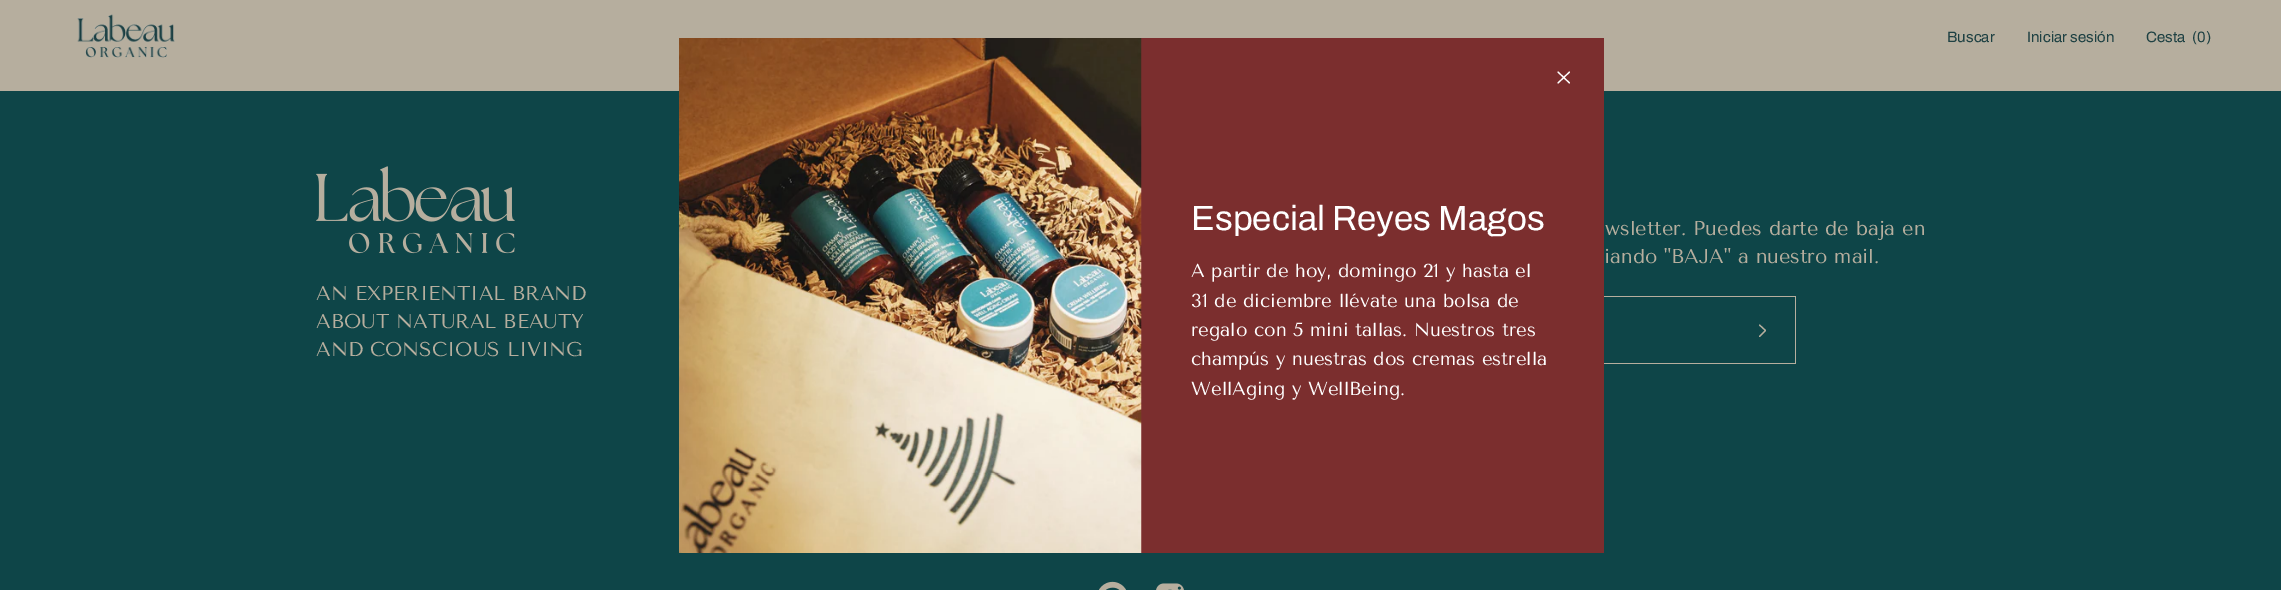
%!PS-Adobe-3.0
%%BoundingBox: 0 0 2281 590
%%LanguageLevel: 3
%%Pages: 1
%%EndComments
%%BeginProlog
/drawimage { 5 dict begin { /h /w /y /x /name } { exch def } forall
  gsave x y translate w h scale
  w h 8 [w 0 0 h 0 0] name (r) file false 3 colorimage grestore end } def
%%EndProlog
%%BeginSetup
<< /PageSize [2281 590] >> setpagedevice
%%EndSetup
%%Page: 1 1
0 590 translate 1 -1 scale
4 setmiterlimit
0.714 0.682 0.62 setrgbcolor
0 0 2281 590 rectfill
(images/1.raw) 77 14 98 44 drawimage
0.055 0.271 0.282 setrgbcolor
0 91 2281 499 rectfill
0.482 0.18 0.18 setrgbcolor
1141 38 463 515 rectfill
1 setgray
1.2 setlinewidth
1 setlinecap
1 setlinejoin
newpath 1569.5 72 moveto 1558 83 lineto 1569.5 83 moveto 1558 72 lineto stroke
(images/2.raw) 679 38 463 515 drawimage
0.714 0.682 0.62 setrgbcolor
1604 296 192 1 rectfill
1604 363 125 1 rectfill
1795 296 1 68 rectfill
1729 363 67 1 rectfill
newpath 1759.5 325 moveto 1765.5 330.5 lineto 1759.5 336.5 lineto stroke
(images/3.raw) 316 166 199 88 drawimage
(images/4.raw) 1099 581 27 9 drawimage
(images/5.raw) 1156 583 28 7 drawimage
/Archivo-Regular [15 0 0 -15 0 0] selectfont
0.118 0.255 0.263 setrgbcolor
1947 42 moveto (Buscar) show
2027 42 moveto (Iniciar sesión) show
2146 42 moveto (Cesta) show
2192 42 moveto (\(0\)) show
/Archivo-Regular [35 0 0 -35 0 0] selectfont
1 setgray
1191 230 moveto (Especial Reyes Magos) show
/TenorSans-Regular [18.75 0 0 -18.75 0 0] selectfont
1191 277 moveto (A partir de hoy, domingo 21 y hasta el) show
1191 307 moveto (31 de diciembre llévate una bolsa de) show
1191 336 moveto (regalo con 5 mini tallas. Nuestros tres) show
1191 365 moveto (champús y nuestras dos cremas estrella) show
1191 395 moveto (WellAging y WellBeing.) show
/TenorSans-Regular [20 0 0 -20 0 0] selectfont
0.714 0.682 0.62 setrgbcolor
1605 235 moveto (wsletter. Puedes darte de baja en) show
1604 263 moveto (iando "BAJA" a nuestro mail.) show
316 300 moveto (AN EXPERIENTIAL BRAND) show
316 328 moveto (ABOUT NATURAL BEAUTY) show
316 356 moveto (AND CONSCIOUS LIVING) show
showpage
%%EOF
